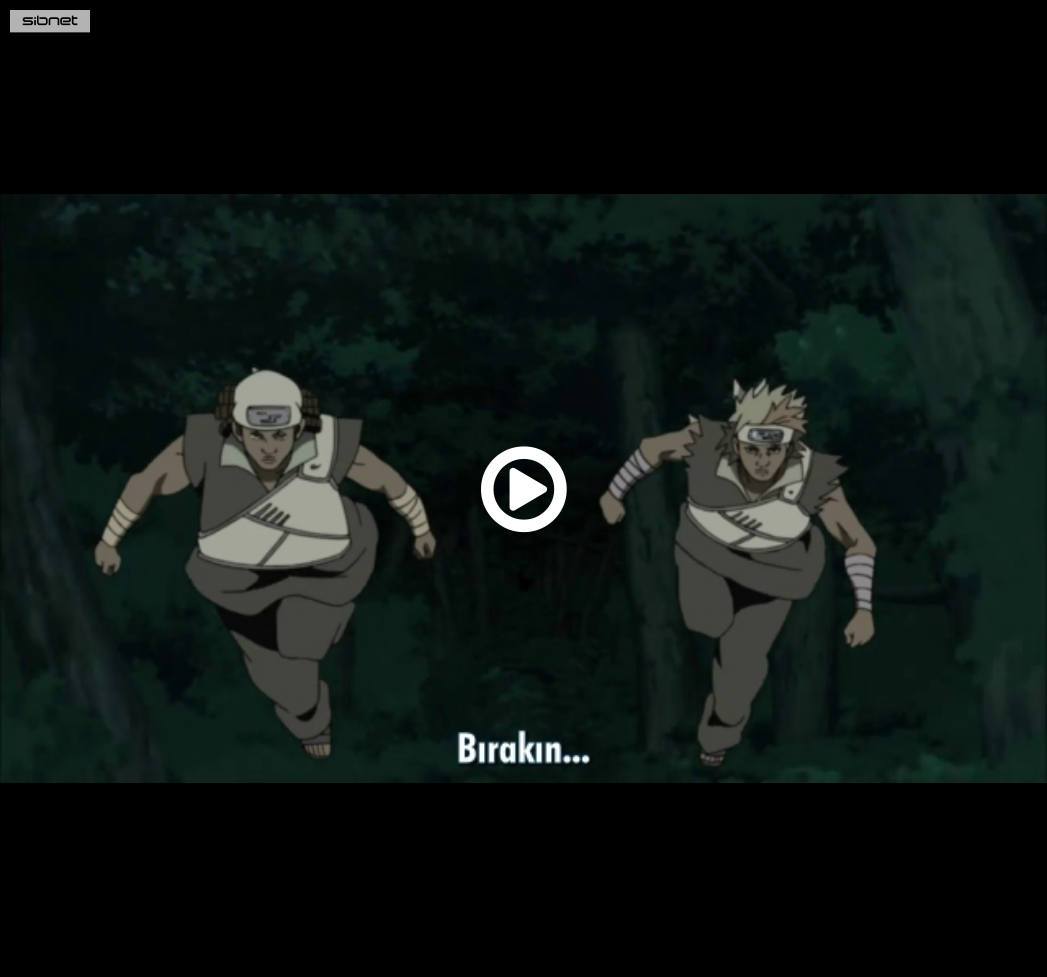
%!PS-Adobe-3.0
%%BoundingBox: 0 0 1047 977
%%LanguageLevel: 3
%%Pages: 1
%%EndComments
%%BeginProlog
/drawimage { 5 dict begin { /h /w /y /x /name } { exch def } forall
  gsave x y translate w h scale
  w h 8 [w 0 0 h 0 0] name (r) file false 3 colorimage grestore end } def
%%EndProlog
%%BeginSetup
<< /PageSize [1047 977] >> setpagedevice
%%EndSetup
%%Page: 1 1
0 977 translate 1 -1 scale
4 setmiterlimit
0 setgray
0 0 1047 977 rectfill
(images/1.raw) 10 10 80 23 drawimage
(images/2.raw) 0 194 1047 589 drawimage
(images/3.raw) 481 446 86 87 drawimage
showpage
%%EOF
